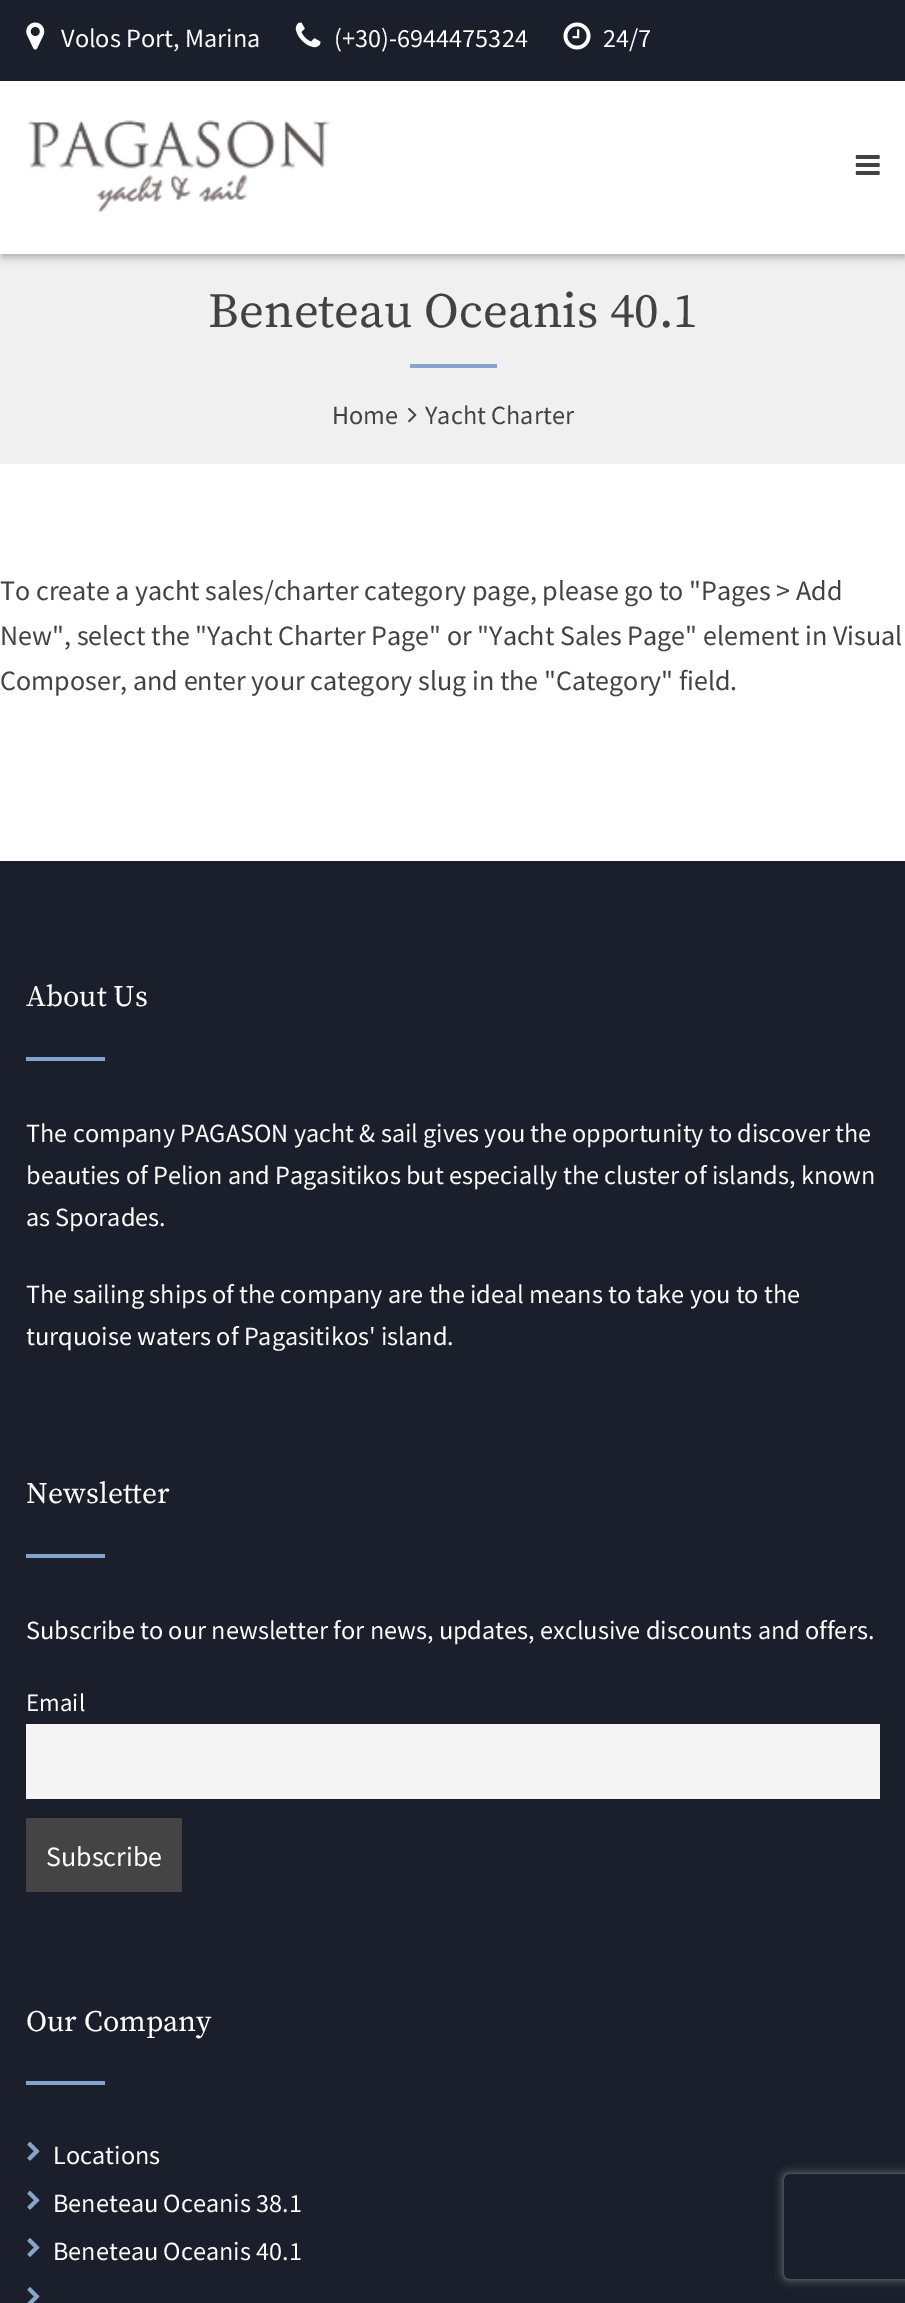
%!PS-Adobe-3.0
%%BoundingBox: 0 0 905 2303
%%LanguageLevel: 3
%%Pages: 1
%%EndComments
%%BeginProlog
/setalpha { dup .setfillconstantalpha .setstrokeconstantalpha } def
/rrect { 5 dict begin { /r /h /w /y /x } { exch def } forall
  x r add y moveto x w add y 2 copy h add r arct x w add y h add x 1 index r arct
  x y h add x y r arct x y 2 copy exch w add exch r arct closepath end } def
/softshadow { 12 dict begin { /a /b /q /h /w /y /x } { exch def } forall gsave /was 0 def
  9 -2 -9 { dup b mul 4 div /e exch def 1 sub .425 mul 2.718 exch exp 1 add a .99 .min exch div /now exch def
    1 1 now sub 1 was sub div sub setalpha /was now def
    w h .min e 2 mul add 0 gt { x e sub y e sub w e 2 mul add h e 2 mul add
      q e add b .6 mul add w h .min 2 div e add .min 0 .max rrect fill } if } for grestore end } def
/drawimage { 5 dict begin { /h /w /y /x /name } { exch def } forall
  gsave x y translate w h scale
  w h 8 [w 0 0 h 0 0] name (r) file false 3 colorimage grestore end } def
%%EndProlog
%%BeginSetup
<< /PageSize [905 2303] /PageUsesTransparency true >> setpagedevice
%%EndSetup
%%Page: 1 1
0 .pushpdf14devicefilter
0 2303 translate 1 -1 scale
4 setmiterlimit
1 setgray
0 0 905 2303 rectfill
0.102 0.122 0.169 setrgbcolor
0 0 905 81 rectfill
(images/1.raw) 26 22 19 28 drawimage
(images/2.raw) 295 22 26 26 drawimage
(images/3.raw) 563 22 28 28 drawimage
0.941 setgray
0 254 905 210 rectfill
0 setgray
2 88 903 169 0 4.5 0.3 softshadow
1 setgray
0 81 905 173 rectfill
(images/4.raw) 27 120 303 93 drawimage
(images/5.raw) 855 155 25 20 drawimage
0.522 0.647 0.8 setrgbcolor
410 364 87 4 rectfill
(images/6.raw) 408 407 9 16 drawimage
0.102 0.122 0.169 setrgbcolor
0 861 905 1442 rectfill
0.522 0.647 0.8 setrgbcolor
26 1057 79 4 rectfill
26 1554 79 4 rectfill
0.957 setgray
26 1724 854 75 rectfill
0.267 setgray
26 1818 156 74 rectfill
0.522 0.647 0.8 setrgbcolor
26 2081 79 4 rectfill
(images/7.raw) 27 2141 13 20 drawimage
(images/7.raw) 27 2190 13 20 drawimage
(images/8.raw) 27 2238 13 19 drawimage
(images/9.raw) 27 2287 13 16 drawimage
gsave
newpath 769 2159 moveto 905 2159 lineto 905 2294 lineto 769 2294 lineto closepath 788 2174 moveto 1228 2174 lineto 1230 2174 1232 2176 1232 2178 curveto 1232 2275 lineto 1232 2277 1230 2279 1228 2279 curveto 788 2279 lineto 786 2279 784 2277 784 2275 curveto 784 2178 lineto 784 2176 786 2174 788 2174 curveto closepath eoclip newpath
0.502 setgray
784 2174 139 105 4 4.5 1 softshadow
grestore
/SourceSansPro-Regular [26.25 0 0 -26.25 0 0] selectfont
1 setgray
61 47 moveto (Volos Port, Marina) show
334 47 moveto (\(+30\)-6944475324) show
603 47 moveto (24/7) show
/SourceSerifPro-Regular [49 0 0 -49 0 0] selectfont
0.259 setgray
208 327 moveto (Beneteau Oceanis 40.1) show
/SourceSansPro-Regular [26.25 0 0 -26.25 0 0] selectfont
332 424 moveto (Home) show
425 424 moveto (Yacht Charter) show
/SourceSansPro-Regular [28 0 0 -28 0 0] selectfont
0 600 moveto (To create a yacht sales/charter category page, please go to "Pages > Add) show
0 645 moveto (New", select the "Yacht Charter Page" or "Yacht Sales Page" element in Visual) show
0 690 moveto (Composer, and enter your category slug in the "Category" field.) show
/SourceSerifPro-Regular [29.75 0 0 -29.75 0 0] selectfont
1 setgray
26 1006 moveto (About Us) show
/SourceSansPro-Regular [26.25 0 0 -26.25 0 0] selectfont
26 1142 moveto (The company PAGASON yacht & sail gives you the opportunity to discover the) show
26 1184 moveto (beauties of Pelion and Pagasitikos but especially the cluster of islands, known) show
26 1226 moveto (as Sporades.) show
26 1303 moveto (The sailing ships of the company are the ideal means to take you to the) show
26 1345 moveto (turquoise waters of Pagasitikos' island.) show
/SourceSerifPro-Regular [29.75 0 0 -29.75 0 0] selectfont
26 1503 moveto (Newsletter) show
/SourceSansPro-Regular [26.25 0 0 -26.25 0 0] selectfont
26 1639 moveto (Subscribe to our newsletter for news, updates, exclusive discounts and offers.) show
/SourceSansPro-Regular [25 0 0 -25 0 0] selectfont
26 1711 moveto (Email) show
/SourceSansPro-Regular [28 0 0 -28 0 0] selectfont
46 1866 moveto (Subscribe) show
/SourceSerifPro-Regular [29.75 0 0 -29.75 0 0] selectfont
26 2031 moveto (Our Company) show
/SourceSansPro-Regular [26.25 0 0 -26.25 0 0] selectfont
53 2164 moveto (Locations) show
53 2212 moveto (Beneteau Oceanis 38.1) show
53 2260 moveto (Beneteau Oceanis 40.1) show
.poppdf14devicefilter showpage
%%EOF
